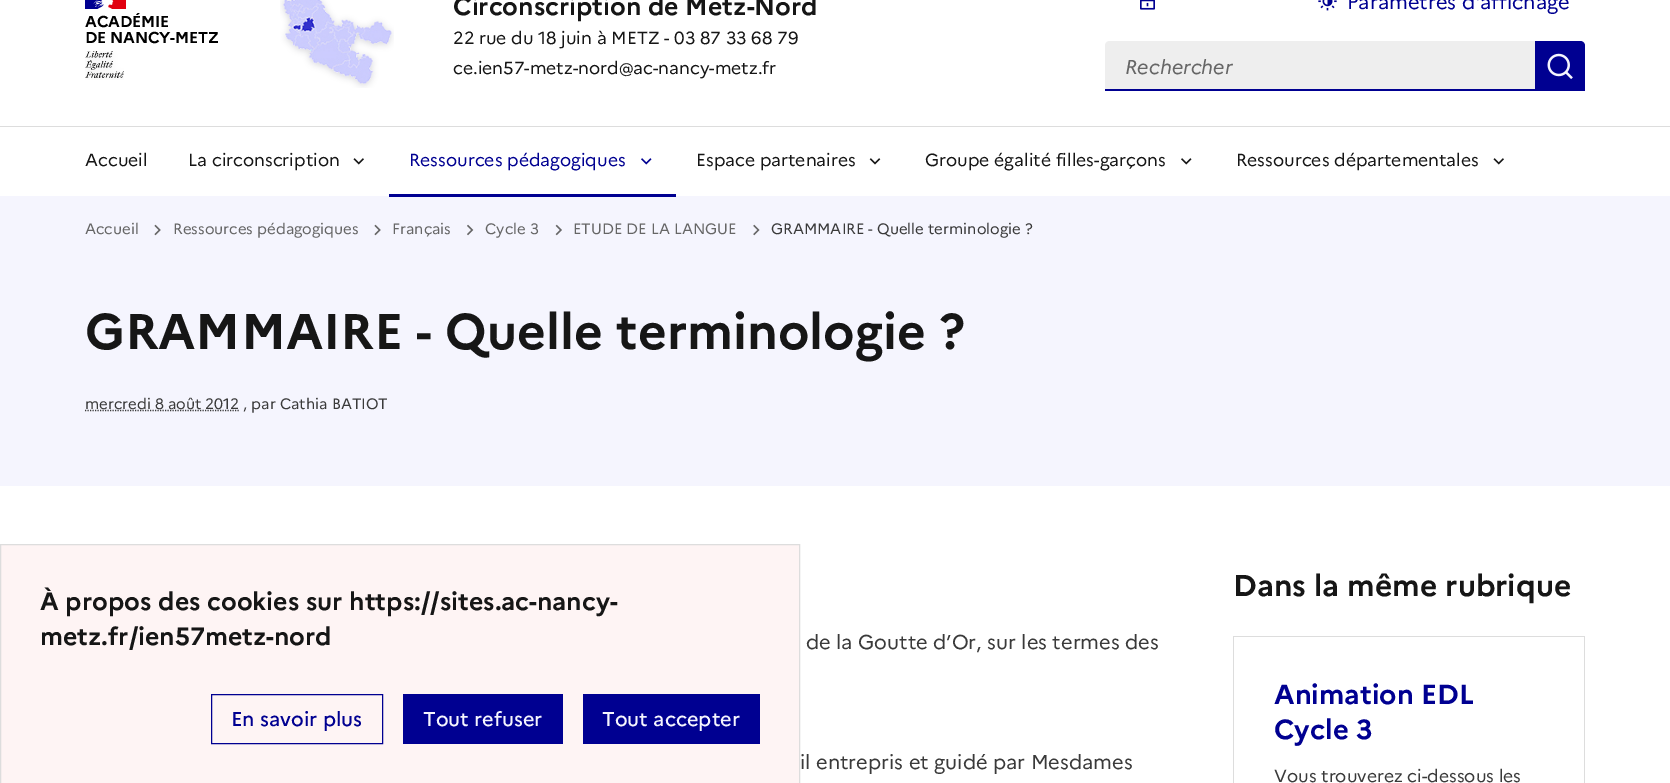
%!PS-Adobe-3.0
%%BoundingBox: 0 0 1670 783
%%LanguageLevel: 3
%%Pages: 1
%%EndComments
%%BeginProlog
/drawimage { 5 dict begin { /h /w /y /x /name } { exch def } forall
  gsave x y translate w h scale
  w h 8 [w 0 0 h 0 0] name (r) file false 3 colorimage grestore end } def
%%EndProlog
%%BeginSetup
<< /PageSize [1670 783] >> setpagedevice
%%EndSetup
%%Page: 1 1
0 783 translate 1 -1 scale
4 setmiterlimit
1 setgray
0 0 1670 783 rectfill
0 0 0.569 setrgbcolor
85 0 19 9 rectfill
0.882 0 0.059 setrgbcolor
108 0 18 9 rectfill
(images/1.raw) 93 0 21 9 drawimage
(images/2.raw) 85 51 39 29 drawimage
(images/3.raw) 280 0 114 88 drawimage
(images/4.raw) 1140 0 15 10 drawimage
(images/5.raw) 1318 0 19 11 drawimage
0.933 setgray
newpath 1110 41 moveto 1535 41 lineto 1535 91 lineto 1105 91 lineto 1105 46 lineto 1105 43 1107 41 1110 41 curveto closepath fill
0 0 0.569 setrgbcolor
1105 89 430 2 rectfill
newpath 1535 41 moveto 1580 41 lineto 1583 41 1585 43 1585 46 curveto 1585 91 lineto 1535 91 lineto closepath fill
(images/6.raw) 1547 53 26 26 drawimage
0.867 setgray
0 126 1670 1 rectfill
(images/7.raw) 353 158 11 7 drawimage
(images/8.raw) 641 158 11 7 drawimage
0.961 0.961 0.996 setrgbcolor
0 196 1670 290 rectfill
0 0 0.569 setrgbcolor
389 194 287 3 rectfill
(images/9.raw) 869 158 12 7 drawimage
(images/10.raw) 1181 158 11 7 drawimage
(images/7.raw) 1493 158 11 7 drawimage
(images/11.raw) 154 224 7 12 drawimage
(images/11.raw) 374 224 7 12 drawimage
(images/12.raw) 467 224 7 12 drawimage
(images/13.raw) 555 224 7 12 drawimage
(images/14.raw) 753 224 7 12 drawimage
0.227 setgray
1.2 setlinewidth
[1.25 1.25] 0 setdash
newpath 85 410.5 moveto 239.5 410.5 lineto stroke
0.867 setgray
1233 636 352 1 rectfill
1584 636 1 147 rectfill
1233 636 1 147 rectfill
0.996 0.957 0.957 setrgbcolor
newpath 0.5 544.5 moveto 799.5 544.5 lineto 799.5 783.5 lineto 0.5 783.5 lineto closepath gsave fill grestore
0.867 setgray
1 setlinewidth
[] 0 setdash
stroke
0 0 0.569 setrgbcolor
211.5 694.5 171 49 rectstroke
403 694 160 50 rectfill
583 694 177 50 rectfill
/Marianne-Bold [15.75 0 0 -15.75 0 0] selectfont
0 setgray
85 27 moveto -0.2 0 (ACADÉMIE) ashow
85 43 moveto -0.2 0 (DE NANCY-METZ) ashow
/Marianne-Bold [25 0 0 -25 0 0] selectfont
0.086 setgray
453 15 moveto (Circonscription de Metz-Nord) show
/Marianne-Regular [17.5 0 0 -17.5 0 0] selectfont
453 44 moveto (22 rue du 18 juin à METZ - 03 87 33 68 79) show
453 74 moveto (ce.ien57-metz-nord@ac-nancy-metz.fr) show
/Marianne-Regular [20 0 0 -20 0 0] selectfont
0 0 0.569 setrgbcolor
1347 9 moveto (Paramètres d'affichage) show
/Marianne-Italic [20 0 0 -20 0 0] selectfont
0.4 setgray
1125 74 moveto (Rechercher) show
/Marianne-Regular [17.5 0 0 -17.5 0 0] selectfont
0.086 setgray
85 166 moveto (Accueil) show
188 166 moveto (La circonscription) show
0 0 0.569 setrgbcolor
409 166 moveto (Ressources pédagogiques) show
0.086 setgray
696 166 moveto (Espace partenaires) show
925 166 moveto (Groupe égalité filles-garçons) show
1236 166 moveto (Ressources départementales) show
/Marianne-Regular [15 0 0 -15 0 0] selectfont
0.4 setgray
85 234 moveto (Accueil) show
173 234 moveto (Ressources pédagogiques) show
392 234 moveto (Français) show
485 234 moveto (Cycle 3) show
573 234 moveto (ETUDE DE LA LANGUE) show
0.227 setgray
771 234 moveto (GRAMMAIRE - Quelle terminologie ?) show
/Marianne-Bold [50 0 0 -50 0 0] selectfont
0.086 setgray
85 349 moveto (GRAMMAIRE - Quelle terminologie ?) show
/Marianne-Regular [15 0 0 -15 0 0] selectfont
0.227 setgray
85 409 moveto (mercredi 8 août 2012 , par Cathia BATIOT) show
/Marianne-Regular [20 0 0 -20 0 0] selectfont
806 649 moveto (de la Goutte d’Or, sur les termes des) show
800 769 moveto (il entrepris et guidé par Mesdames) show
/Marianne-Bold [30 0 0 -30 0 0] selectfont
0.086 setgray
1233 596 moveto (Dans la même rubrique) show
/Marianne-Bold [27.5 0 0 -27.5 0 0] selectfont
0 0 0.569 setrgbcolor
1274 704 moveto (Animation EDL) show
1274 739 moveto (Cycle 3) show
/Marianne-Regular [17.5 0 0 -17.5 0 0] selectfont
0.227 setgray
1274 782 moveto (Vous trouverez ci-dessous les) show
/Marianne-Bold [25 0 0 -25 0 0] selectfont
0.086 setgray
40 610 moveto (À propos des cookies sur https://sites.ac-nancy-) show
40 645 moveto (metz.fr/ien57metz-nord) show
/Marianne-Medium [20 0 0 -20 0 0] selectfont
0 0 0.569 setrgbcolor
231 726 moveto (En savoir plus) show
0.961 0.961 0.996 setrgbcolor
423 726 moveto (Tout refuser) show
602 726 moveto (Tout accepter) show
showpage
%%EOF
